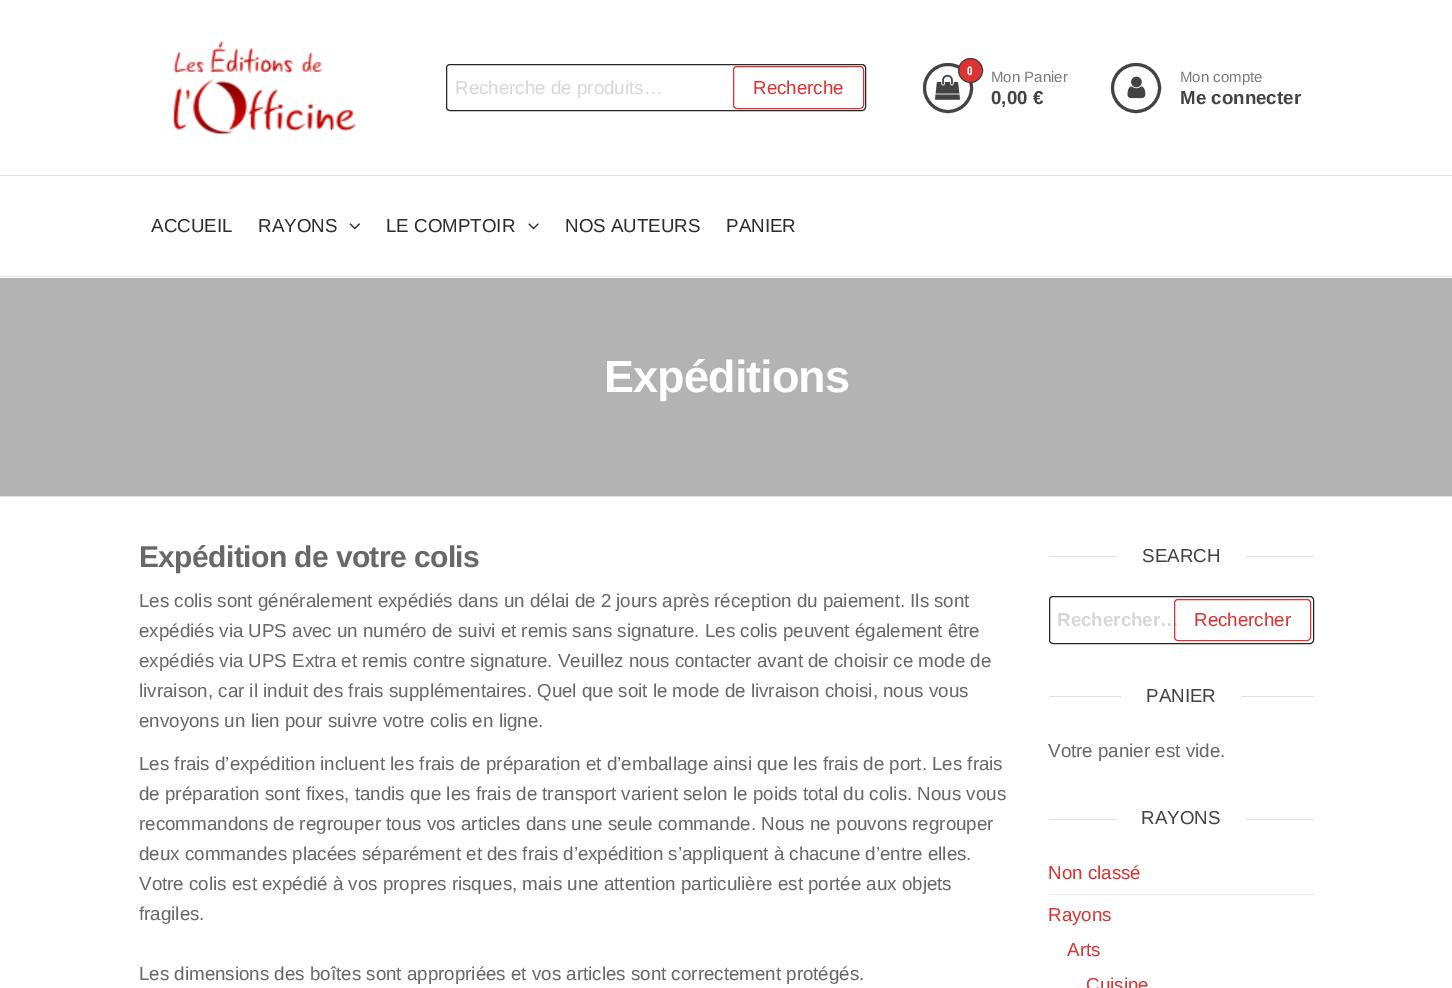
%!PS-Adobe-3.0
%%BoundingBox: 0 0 1452 988
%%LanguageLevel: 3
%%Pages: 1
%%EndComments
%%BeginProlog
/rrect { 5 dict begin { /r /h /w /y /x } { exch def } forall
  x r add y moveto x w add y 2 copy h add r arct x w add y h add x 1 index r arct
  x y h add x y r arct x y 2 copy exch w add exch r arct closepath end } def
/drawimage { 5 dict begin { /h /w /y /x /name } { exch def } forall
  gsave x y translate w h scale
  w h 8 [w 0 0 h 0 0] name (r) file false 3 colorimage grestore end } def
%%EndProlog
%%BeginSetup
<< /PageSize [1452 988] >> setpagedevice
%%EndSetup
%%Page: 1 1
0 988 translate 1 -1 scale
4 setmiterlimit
1 setgray
0 0 1452 988 rectfill
0.886 setgray
0 175 1452 1 rectfill
(images/1.raw) 172 41 184 94 drawimage
0.153 setgray
446.5 64.5 419 46 3.5 rrect stroke
0.867 0.2 0.2 setrgbcolor
733.5 66.5 130 42 3.5 rrect stroke
0.263 setgray
3 setlinewidth
newpath 948 88 23.5 0 360 arc closepath stroke
(images/2.raw) 935 74 25 26 drawimage
0.867 0.2 0.2 setrgbcolor
newpath 970.5 70.5 12 0 360 arc closepath gsave fill grestore
0.263 setgray
1 setlinewidth
stroke
3 setlinewidth
newpath 1136 88 23.5 0 360 arc closepath stroke
(images/3.raw) 1127 76 19 23 drawimage
0.886 setgray
0 276 1452 1 rectfill
(images/4.raw) 349 223 11 7 drawimage
(images/5.raw) 528 223 11 7 drawimage
0 496 1452 1 rectfill
0.702 setgray
0 278 1452 218 rectfill
0.886 setgray
1049 556 265 1 rectfill
1 setgray
1116 556 129 1 rectfill
0.153 setgray
1 setlinewidth
1049.5 596.5 264 47 3.5 rrect stroke
0.886 setgray
1049 696 265 1 rectfill
1 setgray
1121 696 120 1 rectfill
0.886 setgray
1049 819 265 1 rectfill
1 setgray
1116 819 129 1 rectfill
0.922 setgray
1049 894 265 1 rectfill
/LiberationSans-Regular [18.75 0 0 -18.75 0 0] selectfont
0.843 setgray
455 94 moveto (Recherche de produits…) show
0.867 0.2 0.2 setrgbcolor
753 94 moveto (Recherche) show
/OpenSansCondensed-Bold [12 0 0 -12 0 0] selectfont
1 setgray
967 75 moveto (0) show
/LiberationSans-Regular [15 0 0 -15 0 0] selectfont
0.482 setgray
991 82 moveto (Mon Panier) show
/LiberationSans-Bold [18.75 0 0 -18.75 0 0] selectfont
0.263 setgray
991 104 moveto (0,00 €) show
/LiberationSans-Regular [15 0 0 -15 0 0] selectfont
0.482 setgray
1180 82 moveto (Mon compte) show
/LiberationSans-Bold [18.75 0 0 -18.75 0 0] selectfont
0.263 setgray
1180 104 moveto (Me connecter) show
/LiberationSans-Regular [18.75 0 0 -18.75 0 0] selectfont
0.176 setgray
151 232 moveto (ACCUEIL) show
258 232 moveto (RAYONS) show
386 232 moveto (LE COMPTOIR) show
565 232 moveto (NOS AUTEURS) show
726 232 moveto (PANIER) show
/LiberationSans-Bold [45 0 0 -45 0 0] selectfont
1 setgray
604 392 moveto -0.9 0 (Expéditions) ashow
/LiberationSans-Bold [30 0 0 -30 0 0] selectfont
0.408 setgray
139 567 moveto -0.6 0 (Expédition de votre colis) ashow
/LiberationSans-Regular [18.75 0 0 -18.75 0 0] selectfont
139 607 moveto (Les colis sont généralement expédiés dans un délai de 2 jours après réception du paiement. Ils sont) show
139 637 moveto (expédiés via UPS avec un numéro de suivi et remis sans signature. Les colis peuvent également être) show
139 667 moveto (expédiés via UPS Extra et remis contre signature. Veuillez nous contacter avant de choisir ce mode de) show
139 697 moveto (livraison, car il induit des frais supplémentaires. Quel que soit le mode de livraison choisi, nous vous) show
139 727 moveto (envoyons un lien pour suivre votre colis en ligne.) show
139 770 moveto (Les frais d’expédition incluent les frais de préparation et d’emballage ainsi que les frais de port. Les frais) show
139 800 moveto (de préparation sont fixes, tandis que les frais de transport varient selon le poids total du colis. Nous vous) show
139 830 moveto (recommandons de regrouper tous vos articles dans une seule commande. Nous ne pouvons regrouper) show
139 860 moveto (deux commandes placées séparément et des frais d’expédition s’appliquent à chacune d’entre elles.) show
139 890 moveto (Votre colis est expédié à vos propres risques, mais une attention particulière est portée aux objets) show
139 920 moveto (fragiles.) show
139 980 moveto (Les dimensions des boîtes sont appropriées et vos articles sont correctement protégés.) show
0.263 setgray
1142 562 moveto (SEARCH) show
/LiberationSans-Bold [18.75 0 0 -18.75 0 0] selectfont
0.843 setgray
1057 626 moveto (Rechercher…) show
0.867 0.2 0.2 setrgbcolor
1174.5 599.5 136 41 3.5 rrect stroke
/LiberationSans-Regular [18.75 0 0 -18.75 0 0] selectfont
1194 626 moveto (Rechercher) show
0.263 setgray
1146 702 moveto (PANIER) show
0.408 setgray
1048 757 moveto (Votre panier est vide.) show
0.263 setgray
1141 824 moveto (RAYONS) show
0.867 0.2 0.2 setrgbcolor
1048 879 moveto (Non classé) show
1048 921 moveto (Rayons) show
1067 956 moveto (Arts) show
1086 991 moveto (Cuisine) show
showpage
%%EOF
